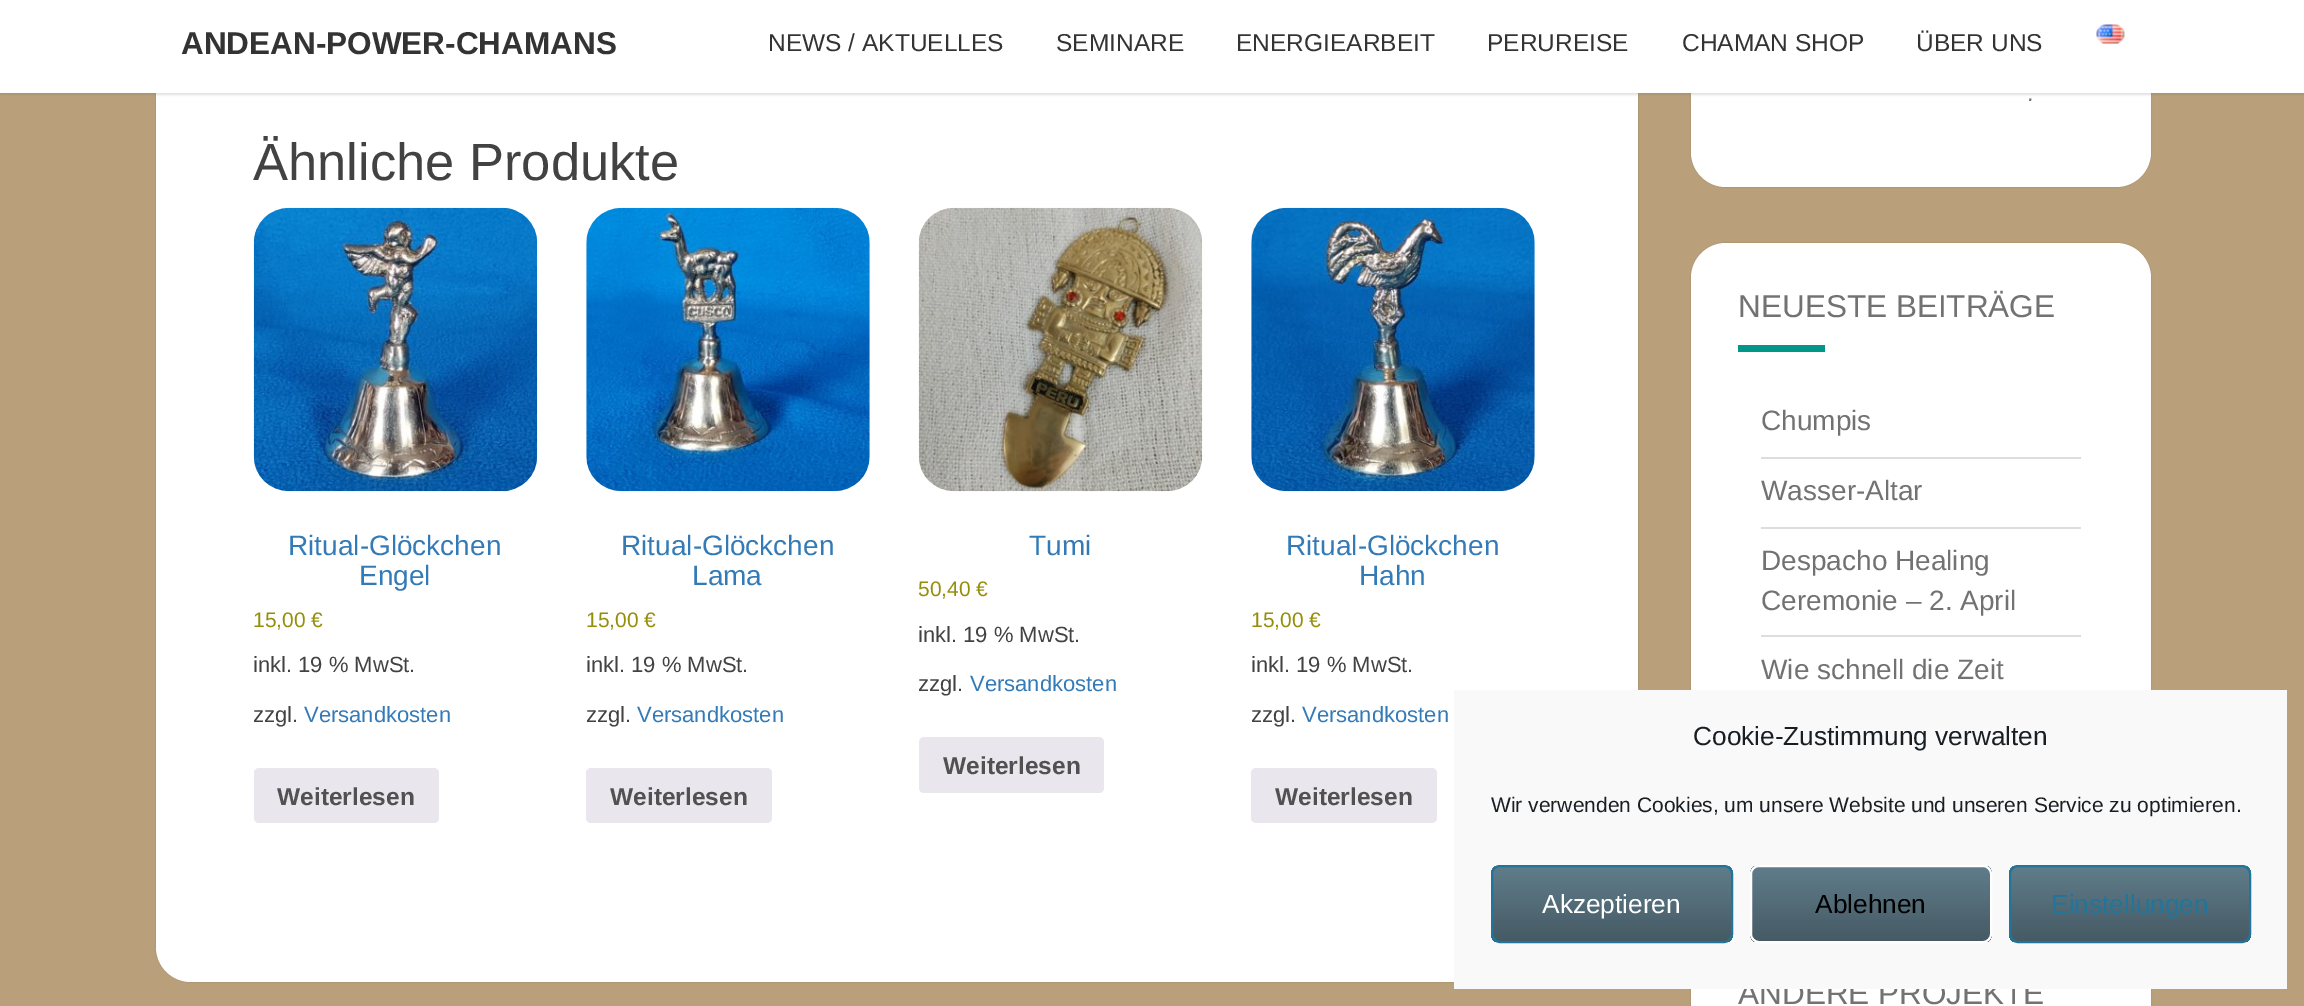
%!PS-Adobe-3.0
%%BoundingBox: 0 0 2304 1006
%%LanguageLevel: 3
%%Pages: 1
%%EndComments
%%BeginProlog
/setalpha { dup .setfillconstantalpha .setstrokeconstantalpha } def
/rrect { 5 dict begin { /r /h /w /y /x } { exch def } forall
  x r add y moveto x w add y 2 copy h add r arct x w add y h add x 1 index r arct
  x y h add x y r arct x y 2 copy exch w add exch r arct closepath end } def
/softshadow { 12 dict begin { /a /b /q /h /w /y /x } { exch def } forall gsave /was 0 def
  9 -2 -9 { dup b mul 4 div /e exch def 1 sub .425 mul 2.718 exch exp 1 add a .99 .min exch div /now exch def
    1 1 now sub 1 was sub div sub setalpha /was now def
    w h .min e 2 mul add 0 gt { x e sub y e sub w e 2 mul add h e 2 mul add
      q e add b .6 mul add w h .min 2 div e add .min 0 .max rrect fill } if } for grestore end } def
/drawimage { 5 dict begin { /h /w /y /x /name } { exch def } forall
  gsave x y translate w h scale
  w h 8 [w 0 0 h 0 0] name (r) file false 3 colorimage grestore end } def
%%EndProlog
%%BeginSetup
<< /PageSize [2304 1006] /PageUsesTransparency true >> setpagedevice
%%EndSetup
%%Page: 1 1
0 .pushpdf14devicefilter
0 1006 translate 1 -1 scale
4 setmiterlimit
0.729 0.627 0.478 setrgbcolor
0 0 2304 1006 rectfill
0 setgray
156 -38 1482 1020 35 1 0.15 softshadow
1 setgray
156 -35 1482 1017 35 rrect fill
0 setgray
1691 -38 460 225 35 1 0.15 softshadow
1 setgray
1691 -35 460 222 35 rrect fill
0.392 setgray
0 2 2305 93 0 1 0.2 softshadow
1 setgray
0 0 2304 93 rectfill
(images/1.raw) 2096 24 29 21 drawimage
(images/2.raw) 253 207 285 285 drawimage
0.914 0.902 0.929 setrgbcolor
254 768 185 55 5 rrect fill
(images/3.raw) 586 207 284 285 drawimage
586 768 186 55 5 rrect fill
(images/4.raw) 918 207 285 285 drawimage
919 737 185 56 5 rrect fill
(images/5.raw) 1251 207 284 285 drawimage
1251 768 186 55 5 rrect fill
0 setgray
1691 243 460 632 35 1 0.15 softshadow
1 setgray
1691 243 460 632 35 rrect fill
0 0.588 0.533 setrgbcolor
1738 345 87 7 rectfill
0.867 setgray
1761 457 320 2 rectfill
1761 527 320 2 rectfill
1761 635 320 2 rectfill
0 setgray
1691 931 460 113 35 1 0.15 softshadow
1 setgray
1691 989 460 17 rectfill
/LiberationSans-Bold [31.5 0 0 -31.5 0 0] selectfont
0.2 setgray
181 54 moveto (ANDEAN-POWER-CHAMANS) show
/LiberationSans-Regular [24.5 0 0 -24.5 0 0] selectfont
768 51 moveto (NEWS / AKTUELLES) show
1056 51 moveto (SEMINARE) show
1236 51 moveto (ENERGIEARBEIT) show
1487 51 moveto (PERUREISE) show
1682 51 moveto (CHAMAN SHOP) show
1916 51 moveto (ÜBER UNS) show
/LiberationSans-Regular [52.5 0 0 -52.5 0 0] selectfont
0.259 setgray
253 180 moveto (Ähnliche Produkte) show
/LiberationSans-Regular [28 0 0 -28 0 0] selectfont
0.2 0.478 0.718 setrgbcolor
288 555 moveto (Ritual-Glöckchen) show
359 585 moveto (Engel) show
/LiberationSans-Regular [21 0 0 -21 0 0] selectfont
0.584 0.557 0.035 setrgbcolor
253 627 moveto (15,00 €) show
/LiberationSans-Regular [22 0 0 -22 0 0] selectfont
0.259 setgray
253 672 moveto (inkl. 19 % MwSt.) show
253 722 moveto (zzgl.) show
0.2 0.478 0.718 setrgbcolor
304 722 moveto (Versandkosten) show
/LiberationSans-Bold [24.5 0 0 -24.5 0 0] selectfont
0.318 setgray
277 805 moveto (Weiterlesen) show
/LiberationSans-Regular [28 0 0 -28 0 0] selectfont
0.2 0.478 0.718 setrgbcolor
621 555 moveto (Ritual-Glöckchen) show
692 585 moveto (Lama) show
/LiberationSans-Regular [21 0 0 -21 0 0] selectfont
0.584 0.557 0.035 setrgbcolor
586 627 moveto (15,00 €) show
/LiberationSans-Regular [22 0 0 -22 0 0] selectfont
0.259 setgray
586 672 moveto (inkl. 19 % MwSt.) show
586 722 moveto (zzgl.) show
0.2 0.478 0.718 setrgbcolor
637 722 moveto (Versandkosten) show
/LiberationSans-Bold [24.5 0 0 -24.5 0 0] selectfont
0.318 setgray
610 805 moveto (Weiterlesen) show
/LiberationSans-Regular [28 0 0 -28 0 0] selectfont
0.2 0.478 0.718 setrgbcolor
1029 555 moveto (Tumi) show
/LiberationSans-Regular [21 0 0 -21 0 0] selectfont
0.584 0.557 0.035 setrgbcolor
918 596 moveto (50,40 €) show
/LiberationSans-Regular [22 0 0 -22 0 0] selectfont
0.259 setgray
918 642 moveto (inkl. 19 % MwSt.) show
918 691 moveto (zzgl.) show
0.2 0.478 0.718 setrgbcolor
970 691 moveto (Versandkosten) show
/LiberationSans-Bold [24.5 0 0 -24.5 0 0] selectfont
0.318 setgray
943 774 moveto (Weiterlesen) show
/LiberationSans-Regular [28 0 0 -28 0 0] selectfont
0.2 0.478 0.718 setrgbcolor
1286 555 moveto (Ritual-Glöckchen) show
1359 585 moveto (Hahn) show
/LiberationSans-Regular [21 0 0 -21 0 0] selectfont
0.584 0.557 0.035 setrgbcolor
1251 627 moveto (15,00 €) show
/LiberationSans-Regular [22 0 0 -22 0 0] selectfont
0.259 setgray
1251 672 moveto (inkl. 19 % MwSt.) show
1251 722 moveto (zzgl.) show
0.2 0.478 0.718 setrgbcolor
1302 722 moveto (Versandkosten) show
/LiberationSans-Bold [24.5 0 0 -24.5 0 0] selectfont
0.318 setgray
1275 805 moveto (Weiterlesen) show
/LiberationSans-Italic [23 0 0 -23 0 0] selectfont
0.447 setgray
2028 101 moveto (.) show
/LiberationSans-Regular [31.5 0 0 -31.5 0 0] selectfont
1738 317 moveto (NEUESTE BEITRÄGE) show
/LiberationSans-Regular [28 0 0 -28 0 0] selectfont
1761 430 moveto (Chumpis) show
1761 500 moveto (Wasser-Altar) show
1761 570 moveto (Despacho Healing) show
1761 610 moveto (Ceremonie – 2. April) show
1761 679 moveto (Wie schnell die Zeit) show
/LiberationSans-Regular [31.5 0 0 -31.5 0 0] selectfont
1738 1004 moveto (ANDERE PROJEKTE) show
0.976 setgray
1454 690 833 299 rectfill
/LiberationSans-Regular [26.25 0 0 -26.25 0 0] selectfont
0.098 0.118 0.137 setrgbcolor
1693 745 moveto (Cookie-Zustimmung verwalten) show
/LiberationSans-Regular [21 0 0 -21 0 0] selectfont
1491 812 moveto (Wir verwenden Cookies, um unsere Website und unseren Service zu optimieren.) show
gsave
1491 865 242 78 9 rrect clip newpath
gsave newpath 1491 866 moveto 1733 866 lineto 1733 942 lineto 1491 942 lineto closepath clip newpath
<< /ShadingType 2 /ColorSpace /DeviceRGB /Coords [1612 866 1612 942] /Extend [true true] /Function << /FunctionType 2 /Domain [0 1] /C0 [0.376 0.49 0.545] /C1 [0.271 0.353 0.392] /N 1 >> >> shfill grestore
grestore
0.129 0.459 0.608 setrgbcolor
2 setlinewidth
1492 866 240 76 8 rrect stroke
/LiberationSans-Regular [26.25 0 0 -26.25 0 0] selectfont
1 setgray
1542 913 moveto (Akzeptieren) show
gsave
1750 865 242 78 9 rrect clip newpath
gsave newpath 1750 866 moveto 1992 866 lineto 1992 942 lineto 1750 942 lineto closepath clip newpath
<< /ShadingType 2 /ColorSpace /DeviceRGB /Coords [1871 866 1871 942] /Extend [true true] /Function << /FunctionType 2 /Domain [0 1] /C0 [0.376 0.49 0.545] /C1 [0.271 0.353 0.392] /N 1 >> >> shfill grestore
grestore
1751 866 240 76 8 rrect stroke
0 setgray
1815 913 moveto (Ablehnen) show
gsave
2009 865 242 78 9 rrect clip newpath
gsave newpath 2009 866 moveto 2251 866 lineto 2251 942 lineto 2009 942 lineto closepath clip newpath
<< /ShadingType 2 /ColorSpace /DeviceRGB /Coords [2130 866 2130 942] /Extend [true true] /Function << /FunctionType 2 /Domain [0 1] /C0 [0.376 0.49 0.545] /C1 [0.271 0.353 0.392] /N 1 >> >> shfill grestore
grestore
0.129 0.459 0.608 setrgbcolor
2010 866 240 76 8 rrect stroke
2051 913 moveto (Einstellungen) show
.poppdf14devicefilter showpage
%%EOF
